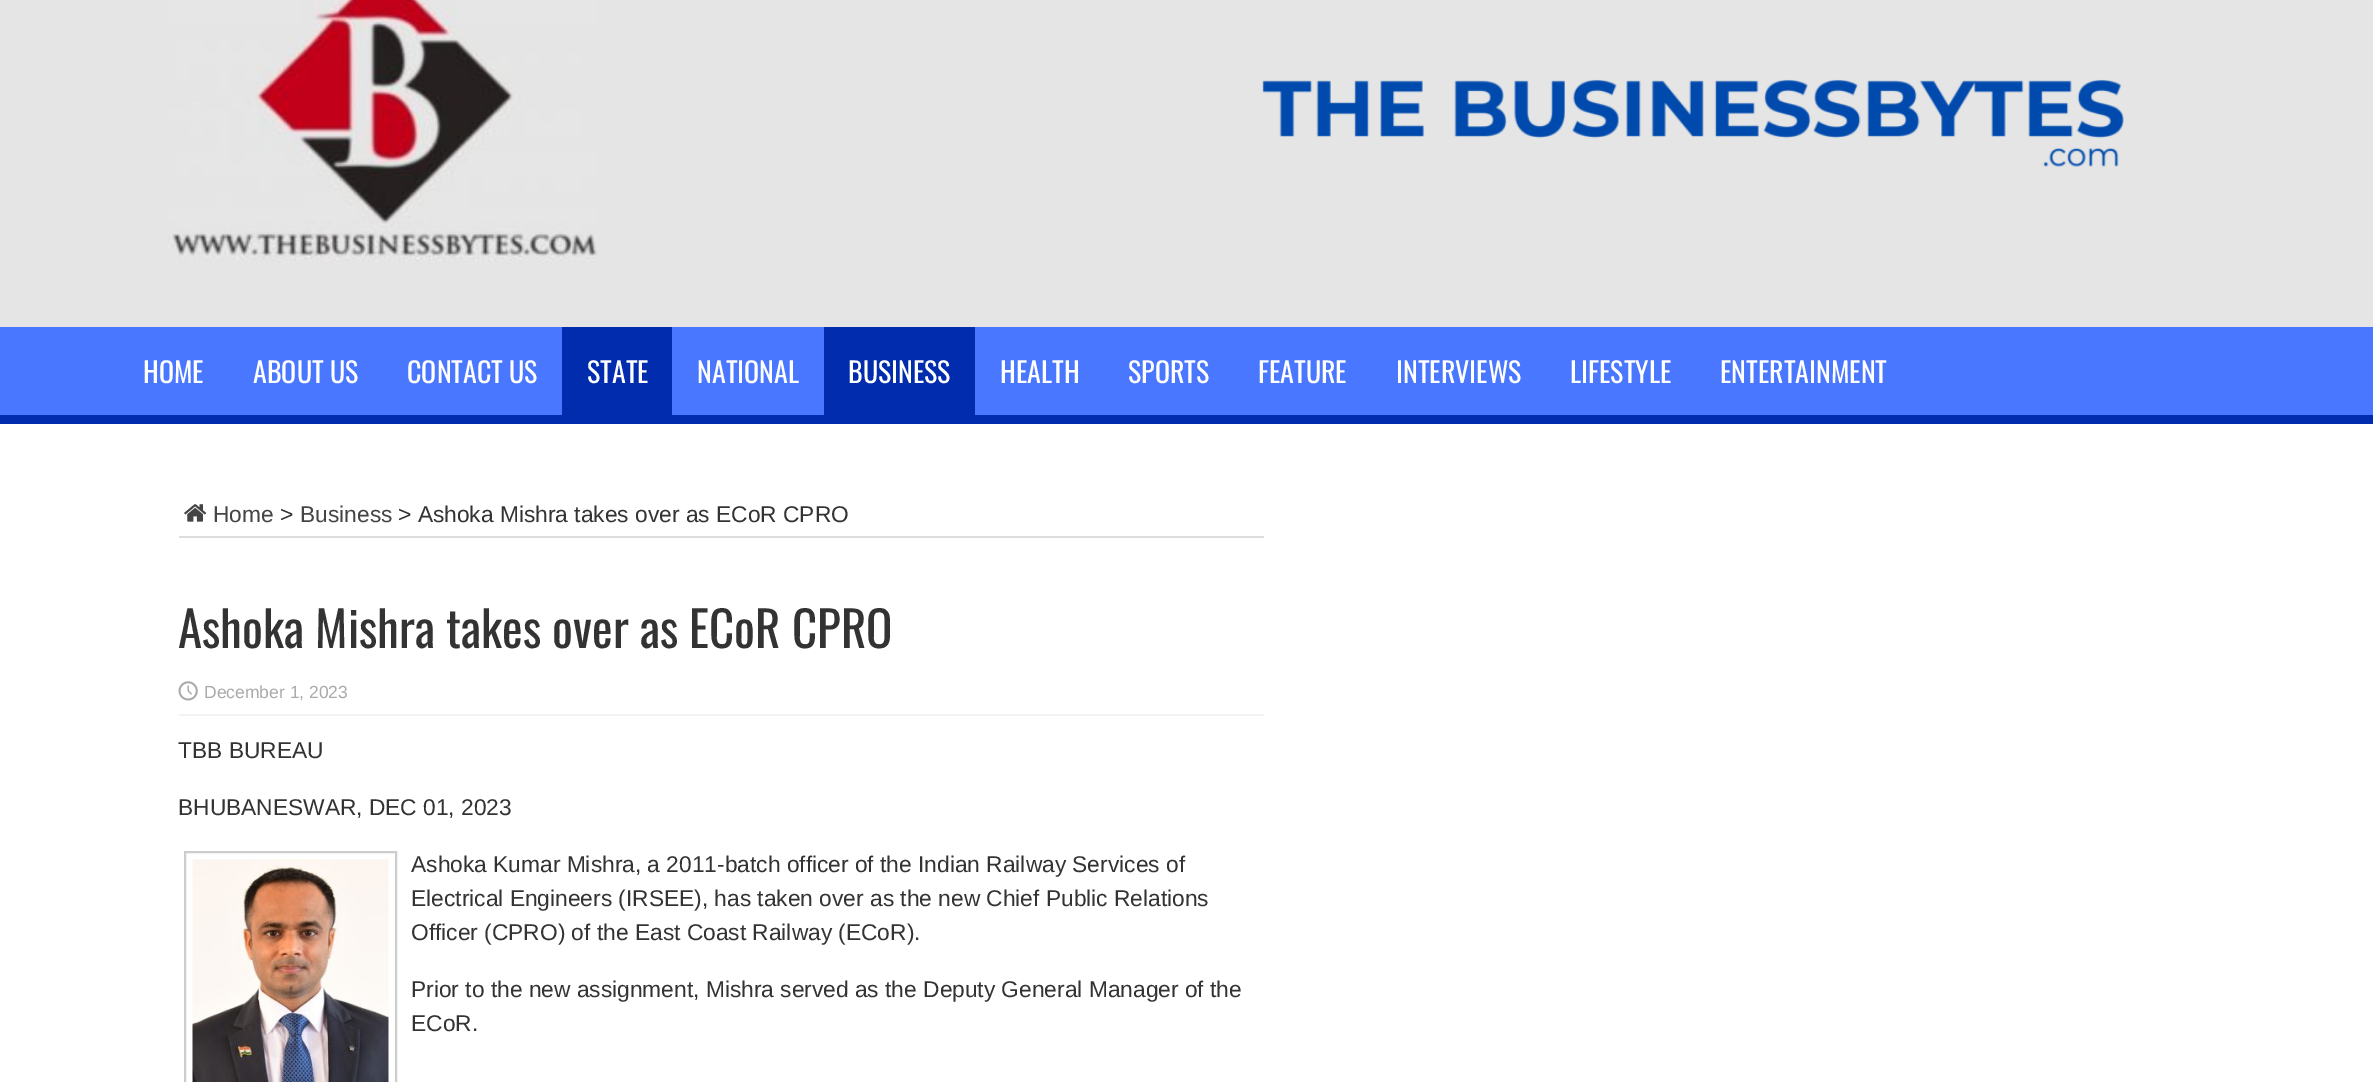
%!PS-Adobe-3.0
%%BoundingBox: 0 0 2373 1082
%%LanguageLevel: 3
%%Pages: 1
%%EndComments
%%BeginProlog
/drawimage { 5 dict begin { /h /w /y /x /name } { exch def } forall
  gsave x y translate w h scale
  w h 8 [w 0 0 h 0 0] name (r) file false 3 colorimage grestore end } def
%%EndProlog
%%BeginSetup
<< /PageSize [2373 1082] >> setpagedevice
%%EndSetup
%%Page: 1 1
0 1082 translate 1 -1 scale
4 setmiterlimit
1 setgray
0 0 2373 1082 rectfill
0.898 setgray
0 0 2373 327 rectfill
(images/1.raw) 168 0 430 262 drawimage
(images/2.raw) 1262 79 862 88 drawimage
0.29 0.467 1 setrgbcolor
0 327 2373 88 rectfill
0.004 0.173 0.678 setrgbcolor
0 415 2373 9 rectfill
562 327 110 88 rectfill
824 327 151 88 rectfill
0.867 setgray
179 536 1085 2 rectfill
(images/3.raw) 184 504 23 18 drawimage
0.949 setgray
179 714 1085 2 rectfill
(images/4.raw) 178 681 20 20 drawimage
0.796 0.804 0.8 setrgbcolor
2 setlinewidth
185 852 211 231 rectstroke
(images/5.raw) 192 859 197 223 drawimage
/Oswald-Regular [28 0 0 -28 0 0] selectfont
1 setgray
143 383 moveto (HOME) show
253 383 moveto (ABOUT US) show
407 383 moveto (CONTACT US) show
587 383 moveto (STATE) show
697 383 moveto (NATIONAL) show
848 383 moveto (BUSINESS) show
1000 383 moveto (HEALTH) show
1128 383 moveto (SPORTS) show
1258 383 moveto (FEATURE) show
1396 383 moveto (INTERVIEWS) show
1570 383 moveto (LIFESTYLE) show
1720 383 moveto (ENTERTAINMENT) show
/LiberationSans-Regular [22.75 0 0 -22.75 0 0] selectfont
0.267 setgray
213 522 moveto (Home) show
0.2 setgray
280 522 moveto (>) show
0.267 setgray
300 522 moveto (Business) show
0.2 setgray
398 522 moveto (> Ashoka Mishra takes over as ECoR CPRO) show
/Oswald-Regular [49 0 0 -49 0 0] selectfont
178 648 moveto (Ashoka Mishra takes over as ECoR CPRO) show
/LiberationSans-Regular [17.5 0 0 -17.5 0 0] selectfont
0.667 setgray
204 698 moveto (December 1, 2023) show
/LiberationSans-Regular [22.75 0 0 -22.75 0 0] selectfont
0.2 setgray
178 758 moveto (TBB BUREAU) show
178 815 moveto (BHUBANESWAR, DEC 01, 2023) show
411 872 moveto (Ashoka Kumar Mishra, a 2011-batch officer of the Indian Railway Services of) show
411 906 moveto (Electrical Engineers \(IRSEE\), has taken over as the new Chief Public Relations) show
411 940 moveto (Officer \(CPRO\) of the East Coast Railway \(ECoR\).) show
411 997 moveto (Prior to the new assignment, Mishra served as the Deputy General Manager of the) show
411 1031 moveto (ECoR.) show
showpage
%%EOF
